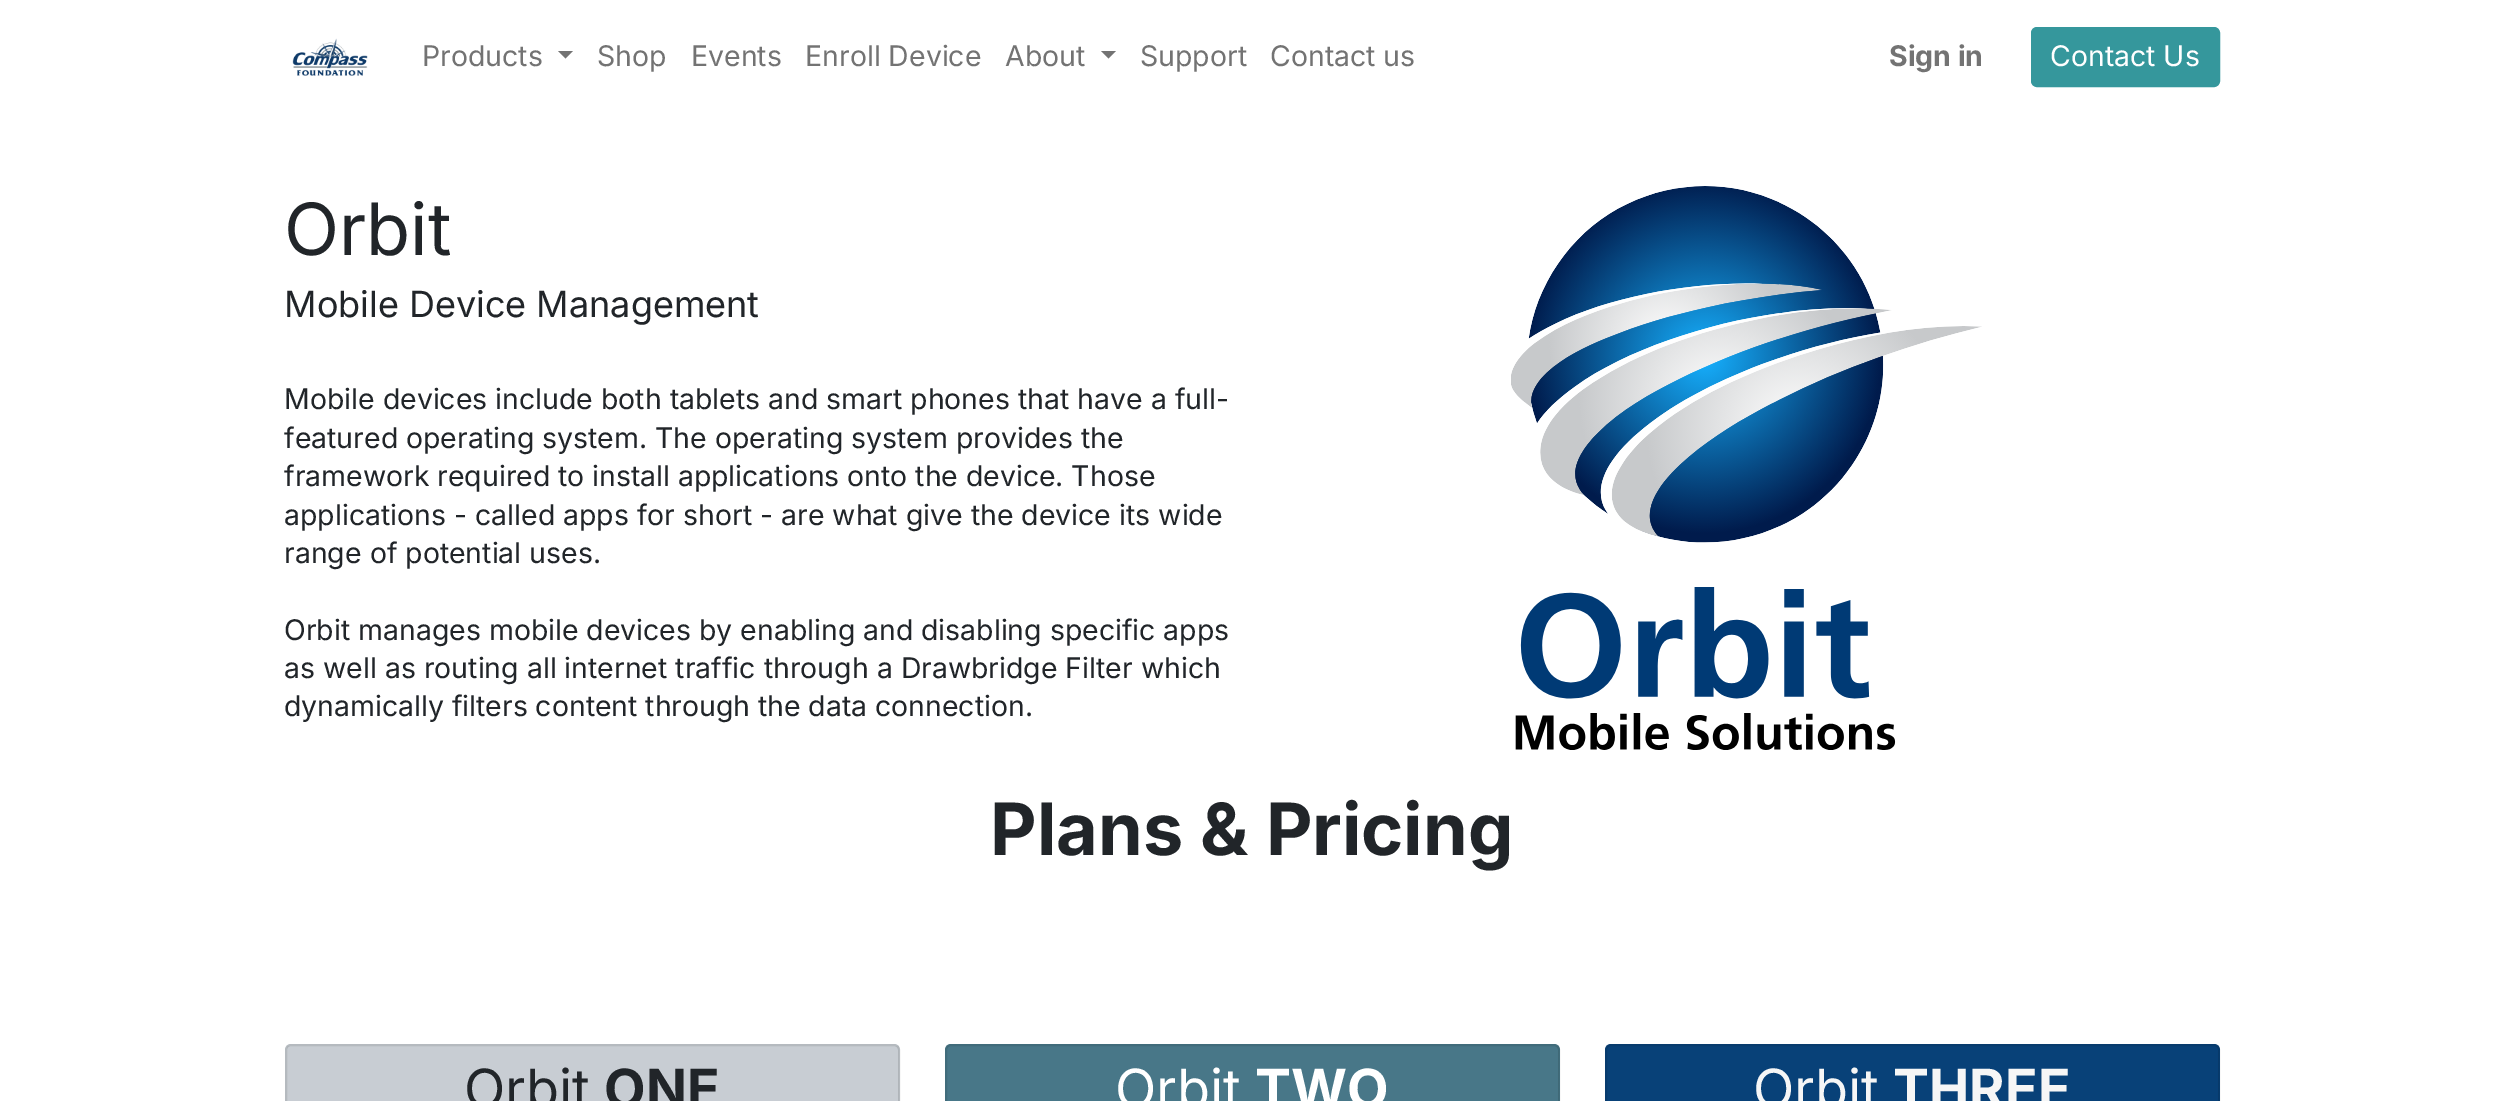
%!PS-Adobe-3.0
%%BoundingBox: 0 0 2503 1101
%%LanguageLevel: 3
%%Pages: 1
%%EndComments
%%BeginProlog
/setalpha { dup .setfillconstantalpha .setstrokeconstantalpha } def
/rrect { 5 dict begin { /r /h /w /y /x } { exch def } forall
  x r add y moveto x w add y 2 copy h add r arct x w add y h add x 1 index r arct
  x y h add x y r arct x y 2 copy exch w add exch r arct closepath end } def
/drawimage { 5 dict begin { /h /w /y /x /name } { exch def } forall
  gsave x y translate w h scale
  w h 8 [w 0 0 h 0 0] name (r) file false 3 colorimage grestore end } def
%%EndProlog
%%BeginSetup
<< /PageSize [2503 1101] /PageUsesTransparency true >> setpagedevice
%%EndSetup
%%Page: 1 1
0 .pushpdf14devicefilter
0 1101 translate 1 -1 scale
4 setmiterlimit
1 setgray
0 0 2503 1101 rectfill
(images/1.raw) 292 38 76 38 drawimage
0.451 setgray
newpath 558 51 moveto 573 51 lineto 565.5 58.5 lineto closepath fill
newpath 1101 51 moveto 1116 51 lineto 1108.5 58.5 lineto closepath fill
0.208 0.592 0.612 setrgbcolor
2032 28 187 58 5 rrect gsave fill grestore
2 setlinewidth
stroke
(images/2.raw) 1511 186 471 564 drawimage
0.808 0.831 0.855 setrgbcolor
newpath 291 1044 moveto 894 1044 lineto 897.5 1044 900 1046.5 900 1050 curveto 900 1101 lineto 285 1101 lineto 285 1050 lineto 285 1046.5 287.5 1044 291 1044 curveto closepath fill
0.12 setalpha
0 setgray
286 1045 613 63 5 rrect stroke
0.03 setalpha
287 1046 612 55 rectfill
1 setalpha
0.29 0.482 0.549 setrgbcolor
newpath 951 1044 moveto 1554 1044 lineto 1557.5 1044 1560 1046.5 1560 1050 curveto 1560 1101 lineto 945 1101 lineto 945 1050 lineto 945 1046.5 947.5 1044 951 1044 curveto closepath fill
0.12 setalpha
0 setgray
946 1045 613 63 5 rrect stroke
0.03 setalpha
947 1046 612 55 rectfill
1 setalpha
0.031 0.263 0.486 setrgbcolor
newpath 1611 1044 moveto 2214 1044 lineto 2217.5 1044 2220 1046.5 2220 1050 curveto 2220 1101 lineto 1605 1101 lineto 1605 1050 lineto 1605 1046.5 1607.5 1044 1611 1044 curveto closepath fill
0.12 setalpha
0 setgray
1606 1045 613 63 5 rrect stroke
0.03 setalpha
1607 1046 612 55 rectfill
/Inter-Regular [28.45 0 0 -28.45 0 0] selectfont
1 setalpha
0.451 setgray
422 66 moveto (Products) show
597 66 moveto (Shop) show
691 66 moveto (Events) show
805 66 moveto (Enroll Device) show
1005 66 moveto (About) show
1140 66 moveto (Support) show
1270 66 moveto (Contact us) show
/Inter-Bold [28.45 0 0 -28.45 0 0] selectfont
1889 66 moveto (Sign in) show
/Inter-Regular [28.45 0 0 -28.45 0 0] selectfont
1 setgray
2050 66 moveto (Contact Us) show
/Inter-Regular [72 0 0 -72 0 0] selectfont
0.129 0.145 0.161 setrgbcolor
284 255 moveto (Orbit) show
/Inter-Regular [36 0 0 -36 0 0] selectfont
284 317 moveto (Mobile Device Management) show
/Inter-Regular [28.45 0 0 -28.45 0 0] selectfont
284 409 moveto (Mobile devices include both tablets and smart phones that have a full-) show
284 448 moveto (featured operating system. The operating system provides the) show
284 486 moveto -0.25 0 32 (framework required to install applications onto the device. Those) widthshow
284 525 moveto (applications - called apps for short - are what give the device its wide) show
284 563 moveto (range of potential uses.) show
284 640 moveto -0.1 0 32 (Orbit manages mobile devices by enabling and disabling specific apps) widthshow
284 678 moveto (as well as routing all internet traffic through a Drawbridge Filter which) show
284 716 moveto -0.25 0 32 (dynamically filters content through the data connection.) widthshow
/Inter-Bold [72 0 0 -72 0 0] selectfont
990 855 moveto (Plans & Pricing) show
/Inter-Regular [54 0 0 -54 0 0] selectfont
464 1108 moveto (Orbit) show
/Inter-Bold [54 0 0 -54 0 0] selectfont
604 1108 moveto (ONE) show
/Inter-Regular [54 0 0 -54 0 0] selectfont
1 setgray
1115 1108 moveto (Orbit) show
/Inter-Bold [54 0 0 -54 0 0] selectfont
1255 1108 moveto (TWO) show
/Inter-Regular [54 0 0 -54 0 0] selectfont
0.965 setgray
1753 1108 moveto (Orbit) show
/Inter-Bold [54 0 0 -54 0 0] selectfont
1893 1108 moveto (THREE) show
.poppdf14devicefilter showpage
%%EOF
